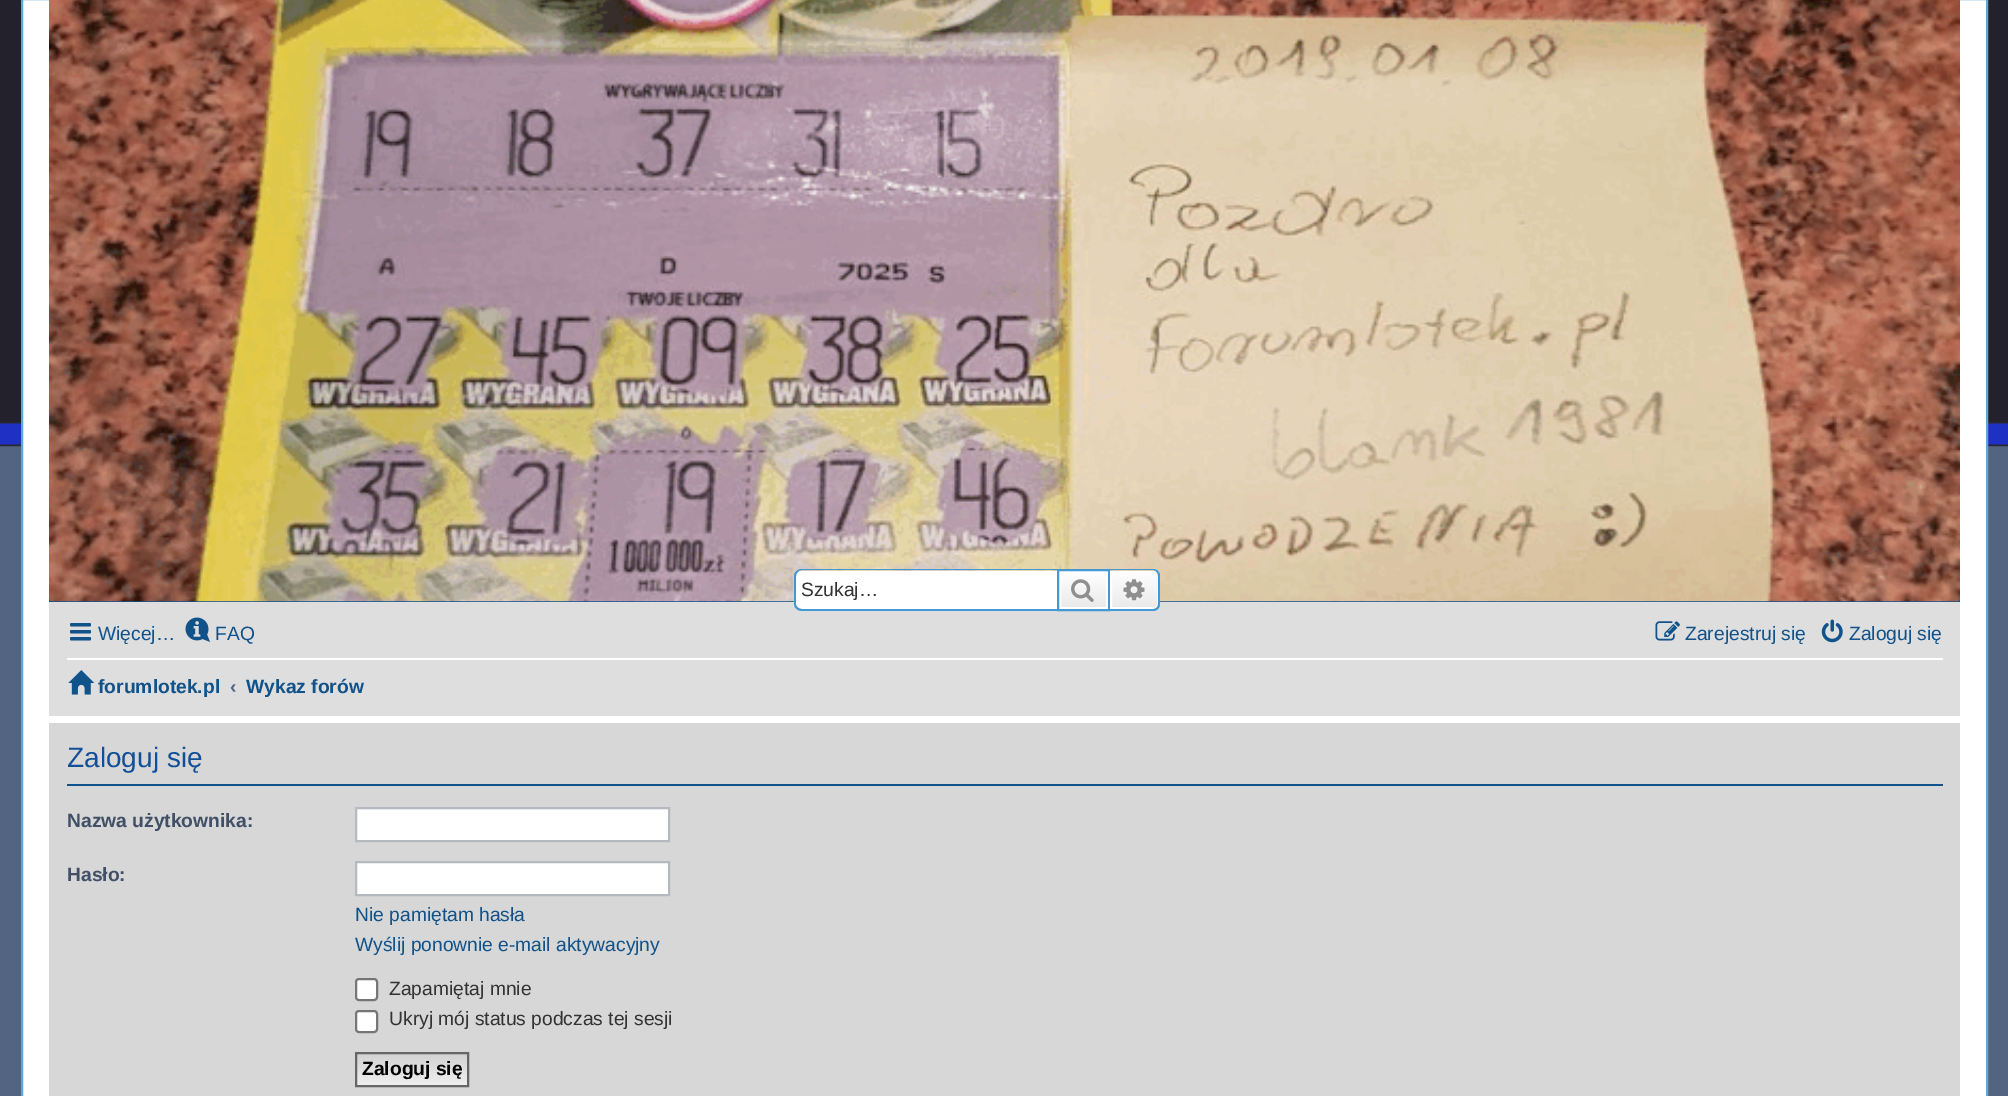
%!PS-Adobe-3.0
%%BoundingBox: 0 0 2008 1096
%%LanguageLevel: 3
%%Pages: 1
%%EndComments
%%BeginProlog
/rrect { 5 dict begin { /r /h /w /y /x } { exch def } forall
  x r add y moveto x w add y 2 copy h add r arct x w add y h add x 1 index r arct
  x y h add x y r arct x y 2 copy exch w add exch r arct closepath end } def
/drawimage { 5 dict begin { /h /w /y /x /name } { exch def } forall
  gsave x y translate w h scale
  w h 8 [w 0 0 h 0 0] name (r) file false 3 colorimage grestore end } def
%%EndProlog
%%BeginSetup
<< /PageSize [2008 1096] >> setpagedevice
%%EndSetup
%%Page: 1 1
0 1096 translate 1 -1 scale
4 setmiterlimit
0.325 0.392 0.51 setrgbcolor
0 0 2008 1096 rectfill
(images/1.raw) 0 0 2008 447 drawimage
1 setgray
newpath 22 -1 moveto 1987 -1 lineto 1987 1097 lineto 22 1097 lineto closepath gsave fill grestore
0.373 0.659 0.827 setrgbcolor
2 setlinewidth
stroke
0.071 0.31 0.569 setrgbcolor
49 598 1911 4 rectfill
(images/2.raw) 49 0 1911 602 drawimage
0.871 setgray
49 602 1911 114 rectfill
1 setgray
newpath 801 571 moveto 1057 571 lineto 1057 609 lineto 801 609 lineto 798 609 796 607 796 604 curveto 796 576 lineto 796 573 798 571 801 571 curveto closepath fill
0.267 0.596 0.831 setrgbcolor
newpath 802 569 moveto 1057 569 lineto 1057 611 lineto 802 611 lineto 798 611 794 608 794 604 curveto 794 576 lineto 794 572 798 569 802 569 curveto closepath 802 570 moveto 1057 570 lineto 1057 609 lineto 802 609 lineto 799 609 796 607 796 604 curveto 796 576 lineto 796 573 799 570 802 570 curveto closepath eofill
gsave newpath 1061 573 moveto 1106 573 lineto 1106 607 lineto 1061 607 lineto closepath clip newpath
<< /ShadingType 2 /ColorSpace /DeviceRGB /Coords [1083 571 1083 609] /Extend [true true] /Function << /FunctionType 2 /Domain [0 1] /C0 [1 1 1] /C1 [0.914 0.914 0.914] /N 1 >> >> shfill grestore
1 setgray
1060 572 47 36 rectstroke
0.267 0.596 0.831 setrgbcolor
1058 570 51 40 rectstroke
(images/3.raw) 1071 579 23 23 drawimage
gsave newpath 1111 572 moveto 1154 572 lineto 1156 572 1158 574 1158 576 curveto 1158 604 lineto 1158 606 1156 608 1154 608 curveto 1111 608 lineto closepath clip newpath
<< /ShadingType 2 /ColorSpace /DeviceRGB /Coords [1134 571 1134 609] /Extend [true true] /Function << /FunctionType 2 /Domain [0 1] /C0 [1 1 1] /C1 [0.914 0.914 0.914] /N 1 >> >> shfill grestore
1 setgray
newpath 1111 572 moveto 1154 572 lineto 1156 572 1158 574 1158 576 curveto 1158 604 lineto 1158 606 1156 608 1154 608 curveto 1111 608 lineto closepath stroke
0.267 0.596 0.831 setrgbcolor
newpath 1110 569 moveto 1153 569 lineto 1157 569 1160 572 1160 576 curveto 1160 604 lineto 1160 608 1157 611 1153 611 curveto 1110 611 lineto closepath 1110 570 moveto 1153 570 lineto 1156 570 1158 573 1158 576 curveto 1158 604 lineto 1158 607 1156 609 1153 609 curveto 1110 609 lineto closepath eofill
(images/4.raw) 1123 579 22 22 drawimage
(images/5.raw) 70 623 21 18 drawimage
(images/6.raw) 185 617 25 25 drawimage
(images/7.raw) 1655 621 25 20 drawimage
(images/8.raw) 1821 619 22 24 drawimage
1 setgray
67 658 1876 2 rectfill
(images/9.raw) 68 670 27 25 drawimage
0.843 setgray
49 723 1911 373 rectfill
0.063 0.322 0.537 setrgbcolor
67 784 1876 2 rectfill
1 setgray
newpath 356 808 moveto 669 808 lineto 669 841 lineto 356 841 lineto closepath gsave fill grestore
0.706 0.729 0.753 setrgbcolor
stroke
1 setgray
newpath 356 862 moveto 669 862 lineto 669 895 lineto 356 895 lineto closepath gsave fill grestore
0.706 0.729 0.753 setrgbcolor
stroke
1 setgray
356 979 21 21 3 rrect gsave fill grestore
0.463 setgray
stroke
1 setgray
356 1011 21 21 3 rrect gsave fill grestore
0.463 setgray
stroke
gsave newpath 357 1054 moveto 467 1054 lineto 467 1085 lineto 357 1085 lineto closepath clip newpath
<< /ShadingType 2 /ColorSpace /DeviceRGB /Coords [412 1054 412 1085] /Extend [true true] /Function << /FunctionType 2 /Domain [0 1] /C0 [0.824 0.824 0.824] /C1 [0.937 0.937 0.937] /N 1 >> >> shfill grestore
0.4 setgray
356 1053 112 33 rectstroke
/LiberationSans-Regular [19.25 0 0 -19.25 0 0] selectfont
0.2 setgray
801 596 moveto (Szukaj…) show
0.063 0.322 0.537 setrgbcolor
98 640 moveto (Więcej…) show
215 640 moveto (FAQ) show
1685 640 moveto (Zarejestruj się) show
1849 640 moveto (Zaloguj się) show
/LiberationSans-Bold [19.25 0 0 -19.25 0 0] selectfont
98 693 moveto (forumlotek.pl) show
0.325 0.392 0.51 setrgbcolor
230 693 moveto (‹) show
0.063 0.322 0.537 setrgbcolor
246 693 moveto (Wykaz forów) show
/LiberationSans-Regular [28 0 0 -28 0 0] selectfont
0.067 0.314 0.596 setrgbcolor
67 767 moveto (Zaloguj się) show
/LiberationSans-Bold [19.25 0 0 -19.25 0 0] selectfont
0.259 0.314 0.404 setrgbcolor
67 827 moveto (Nazwa użytkownika:) show
67 881 moveto (Hasło:) show
/LiberationSans-Regular [19.25 0 0 -19.25 0 0] selectfont
0.063 0.322 0.537 setrgbcolor
355 921 moveto (Nie pamiętam hasła) show
355 951 moveto (Wyślij ponownie e-mail aktywacyjny) show
0.2 setgray
389 995 moveto (Zapamiętaj mnie) show
389 1025 moveto (Ukryj mój status podczas tej sesji) show
/LiberationSans-Bold [19.25 0 0 -19.25 0 0] selectfont
0 setgray
362 1075 moveto (Zaloguj się) show
showpage
%%EOF
